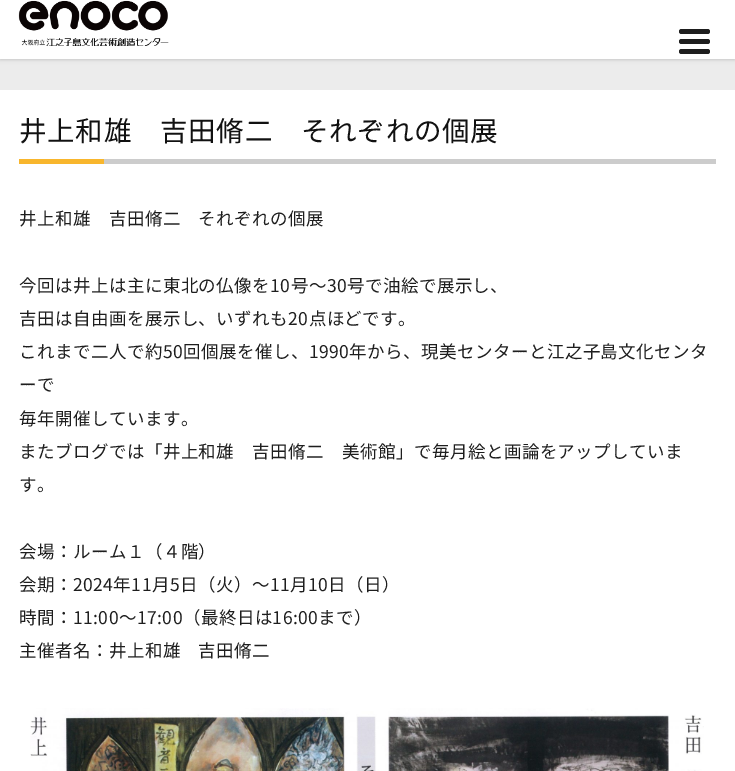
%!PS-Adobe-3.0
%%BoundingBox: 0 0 735 771
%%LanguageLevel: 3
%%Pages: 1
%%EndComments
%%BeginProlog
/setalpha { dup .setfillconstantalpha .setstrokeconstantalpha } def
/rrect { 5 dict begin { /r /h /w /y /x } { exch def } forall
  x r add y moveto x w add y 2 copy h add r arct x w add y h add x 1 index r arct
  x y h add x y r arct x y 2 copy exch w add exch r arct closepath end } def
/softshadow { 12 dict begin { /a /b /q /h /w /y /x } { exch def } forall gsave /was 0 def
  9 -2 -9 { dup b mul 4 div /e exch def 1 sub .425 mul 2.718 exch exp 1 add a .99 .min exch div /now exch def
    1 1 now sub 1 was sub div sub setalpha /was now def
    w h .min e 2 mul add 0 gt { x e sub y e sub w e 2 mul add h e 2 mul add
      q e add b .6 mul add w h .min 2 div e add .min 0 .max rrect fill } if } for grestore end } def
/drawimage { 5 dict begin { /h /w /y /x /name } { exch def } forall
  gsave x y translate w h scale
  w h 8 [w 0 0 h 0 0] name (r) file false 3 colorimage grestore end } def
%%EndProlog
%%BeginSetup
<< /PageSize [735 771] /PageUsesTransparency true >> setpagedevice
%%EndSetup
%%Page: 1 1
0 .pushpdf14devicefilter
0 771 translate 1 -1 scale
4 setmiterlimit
0.925 setgray
0 0 735 771 rectfill
0 setgray
0 -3 735 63 0 1 0.06 softshadow
0 -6 735 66 0 2 0.1 softshadow
1 setgray
0 0 735 59 rectfill
0.118 setgray
679 39 31 5 2.5 rrect fill
679 29 31 5 2.5 rrect fill
679 49 31 5 2.5 rrect fill
(images/1.raw) 18 0 151 46 drawimage
1 setgray
0 90 735 681 rectfill
0.973 0.714 0.176 setrgbcolor
19 159 85 5 rectfill
0.8 setgray
104 159 612 5 rectfill
(images/2.raw) 30 708 674 63 drawimage
/NotoSansJP-Regular [27.5 0 0 -27.5 0 0] selectfont
0.067 setgray
19 141 moveto 0.7 0 (井上和雄　吉田脩二　それぞれの個展) ashow
/NotoSansJP-Regular [17.5 0 0 -17.5 0 0] selectfont
0.118 setgray
19 225 moveto 0.45 0 (井上和雄　吉田脩二　それぞれの個展) ashow
19 292 moveto 0.45 0 (今回は井上は主に東北の仏像を10号〜30号で油絵で展示し、) ashow
19 325 moveto 0.45 0 (吉田は自由画を展示し、いずれも20点ほどです。) ashow
19 358 moveto 0.45 0 (これまで二人で約50回個展を催し、1990年から、現美センターと江之子島文化センタ) ashow
19 391 moveto 0.45 0 (ーで) ashow
19 425 moveto 0.45 0 (毎年開催しています。) ashow
19 458 moveto 0.45 0 (またブログでは「井上和雄　吉田脩二　美術館」で毎月絵と画論をアップしていま) ashow
19 491 moveto 0.45 0 (す。) ashow
19 558 moveto 0.45 0 (会場：ルーム１（４階）) ashow
19 591 moveto 0.45 0 (会期：2024年11月5日（火）～11月10日（日）) ashow
19 624 moveto 0.45 0 (時間：11:00～17:00（最終日は16:00まで）) ashow
19 657 moveto 0.45 0 (主催者名：井上和雄　吉田脩二) ashow
.poppdf14devicefilter showpage
%%EOF
